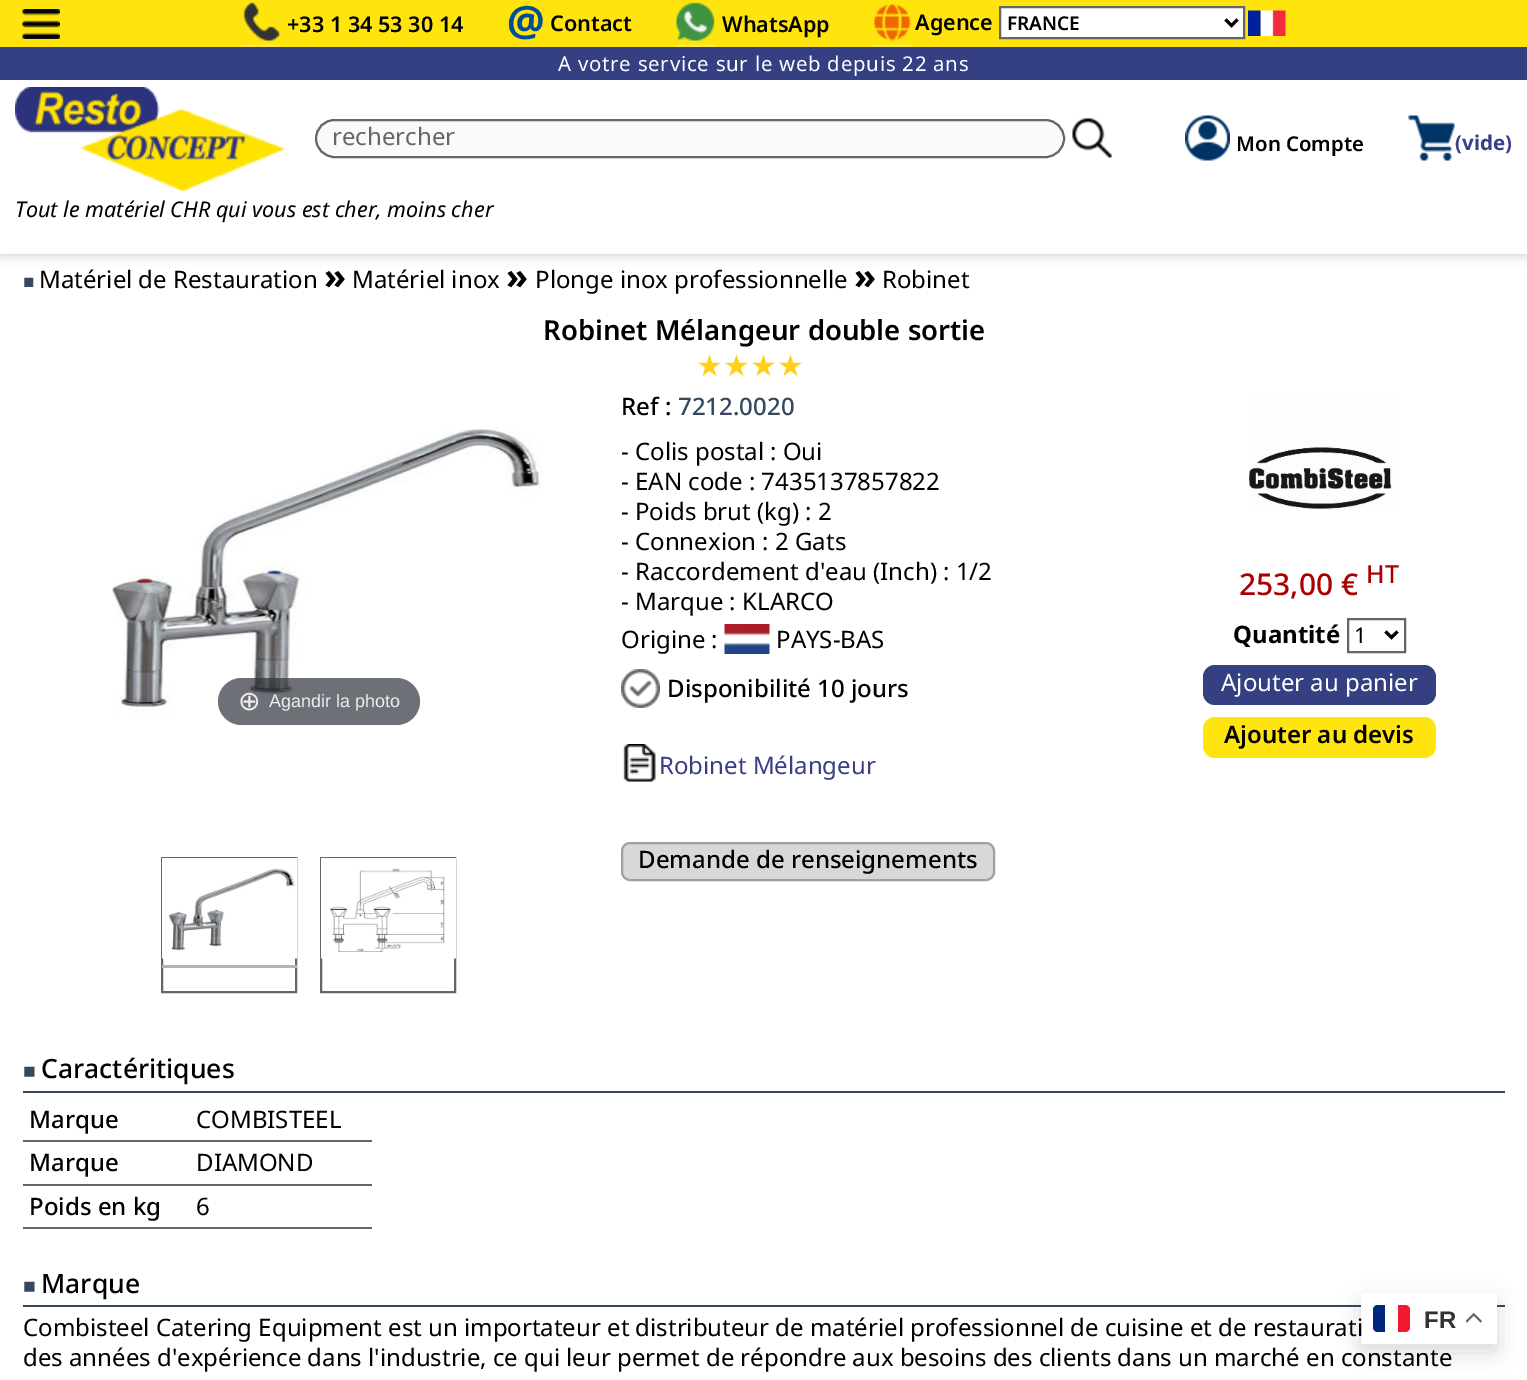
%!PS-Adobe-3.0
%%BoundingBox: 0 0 1527 1380
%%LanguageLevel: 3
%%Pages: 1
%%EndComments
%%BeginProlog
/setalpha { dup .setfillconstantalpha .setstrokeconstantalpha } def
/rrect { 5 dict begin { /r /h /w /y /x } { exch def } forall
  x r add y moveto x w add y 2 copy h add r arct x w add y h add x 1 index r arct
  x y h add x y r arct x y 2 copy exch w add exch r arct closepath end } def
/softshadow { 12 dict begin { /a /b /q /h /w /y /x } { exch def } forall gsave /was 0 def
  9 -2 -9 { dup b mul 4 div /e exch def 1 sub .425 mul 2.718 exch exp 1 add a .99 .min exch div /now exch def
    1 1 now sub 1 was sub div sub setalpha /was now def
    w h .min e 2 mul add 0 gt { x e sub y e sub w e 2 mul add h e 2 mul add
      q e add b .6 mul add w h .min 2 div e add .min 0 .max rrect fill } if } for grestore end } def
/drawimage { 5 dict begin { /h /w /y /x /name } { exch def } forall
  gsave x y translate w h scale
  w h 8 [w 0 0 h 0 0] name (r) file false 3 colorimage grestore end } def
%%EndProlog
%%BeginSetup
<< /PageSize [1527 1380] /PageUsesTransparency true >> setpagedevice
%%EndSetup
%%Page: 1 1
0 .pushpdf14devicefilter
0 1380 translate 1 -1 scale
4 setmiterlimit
1 setgray
0 0 1527 1380 rectfill
0 setgray
0 0 1527 254 0 6 0.24 softshadow
1 setgray
0 80 1527 174 rectfill
1 0.894 0.055 setrgbcolor
0 0 1527 47 rectfill
(images/1.raw) 22 9 38 30 drawimage
(images/2.raw) 241 2 40 45 drawimage
(images/3.raw) 675 2 41 45 drawimage
(images/4.raw) 873 4 39 43 drawimage
1 setgray
newpath 1000 7 moveto 1244 7 lineto 1244 38 lineto 1000 38 lineto closepath gsave fill grestore
0.4 setgray
2 setlinewidth
stroke
0 setgray
3 setlinewidth
newpath 1225.5 19.5 moveto 1231.5 25.5 lineto 1237.5 19.5 lineto stroke
(images/5.raw) 1248 10 38 26 drawimage
0.204 0.251 0.51 setrgbcolor
0 47 1527 33 rectfill
(images/6.raw) 15 87 270 104 drawimage
0.98 setgray
316 120 748 37 18.5 rrect gsave fill grestore
0.4 setgray
2 setlinewidth
stroke
(images/7.raw) 1072 118 40 40 drawimage
(images/8.raw) 1185 115 45 46 drawimage
(images/9.raw) 1408 115 47 46 drawimage
(images/10.raw) 112 427 431 287 drawimage
0.7 setalpha
0.192 0.2 0.239 setrgbcolor
218 678 202 47 23.5 rrect fill
1 setalpha
0.4 setgray
162 858 134 134 rectstroke
(images/11.raw) 162 858 135 101 drawimage
0.706 setgray
162 965 135 3 rectfill
0.4 setgray
321 858 134 134 rectstroke
(images/12.raw) 321 858 135 101 drawimage
(images/13.raw) 724 624 46 30 drawimage
(images/14.raw) 621 669 39 39 drawimage
(images/15.raw) 623 744 33 38 drawimage
0.847 setgray
622 843 372 37 8 rrect gsave fill grestore
0.627 setgray
stroke
(images/16.raw) 1249 394 144 116 drawimage
0.4 setgray
1348 619 57 33 rectstroke
0 setgray
3 setlinewidth
newpath 1385.5 631.5 moveto 1391.5 637.5 lineto 1397.5 631.5 lineto stroke
0.204 0.251 0.51 setrgbcolor
1203 665 233 40 12 rrect fill
1 0.894 0.055 setrgbcolor
1203 717 233 41 12 rrect fill
0.204 0.286 0.369 setrgbcolor
23 1091 1482 2 rectfill
0.4 setgray
23 1140 349 2 rectfill
23 1184 349 2 rectfill
23 1227 349 2 rectfill
0.204 0.286 0.369 setrgbcolor
23 1305 1482 2 rectfill
0 setgray
1361 1301 136 51 3 11 0.15 softshadow
1 setgray
1361 1293 136 51 3 rrect fill
0 0.149 0.498 setrgbcolor
newpath 1378 1305 moveto 1385 1305 lineto 1385 1332 lineto 1378 1332 lineto 1375 1332 1373 1330 1373 1327 curveto 1373 1310 lineto 1373 1307 1375 1305 1378 1305 curveto closepath fill
0.953 0.094 0.188 setrgbcolor
newpath 1398 1305 moveto 1405 1305 lineto 1408 1305 1410 1307 1410 1310 curveto 1410 1327 lineto 1410 1330 1408 1332 1405 1332 curveto 1398 1332 lineto closepath fill
(images/17.raw) 1466 1313 16 10 drawimage
/NotoSans-SemiBold [21.6 0 0 -21.6 0 0] selectfont
0 setgray
287 32 moveto (+33 1 34 53 30 14) show
/NotoSans-Bold [42 0 0 -42 0 0] selectfont
0 0.302 0.6 setrgbcolor
507 36 moveto (@) show
/NotoSans-SemiBold [21.6 0 0 -21.6 0 0] selectfont
0 setgray
550 31 moveto (Contact) show
722 32 moveto (WhatsApp) show
915 30 moveto (Agence) show
/NotoSans-SemiBold [19 0 0 -19 0 0] selectfont
1007 30 moveto (FRANCE) show
/NotoSans-Regular [20.4 0 0 -20.4 0 0] selectfont
1 setgray
558 71 moveto 0.75 0 (A votre service sur le web depuis 22 ans) ashow
/NotoSans-Regular [24 0 0 -24 0 0] selectfont
0.4 setgray
332 145 moveto (rechercher) show
/NotoSans-SemiBold [20.4 0 0 -20.4 0 0] selectfont
0 setgray
1236 151 moveto (Mon Compte) show
/NotoSans-Bold [20.4 0 0 -20.4 0 0] selectfont
0.224 0.243 0.529 setrgbcolor
1455 150 moveto (\(vide\)) show
/NotoSans-Italic [21.6 0 0 -21.6 0 0] selectfont
0 setgray
15 217 moveto (Tout le matériel CHR qui vous est cher, moins cher) show
/LiberationSans-Regular [19 0 0 -19 0 0] selectfont
0.204 0.286 0.369 setrgbcolor
23 288 moveto (■) show
/NotoSans-Regular [24 0 0 -24 0 0] selectfont
0 setgray
39 288 moveto (Matériel de Restauration) show
/NotoSans-Bold [36 0 0 -36 0 0] selectfont
324 289 moveto (») show
/NotoSans-Regular [24 0 0 -24 0 0] selectfont
352 288 moveto (Matériel inox) show
/NotoSans-Bold [36 0 0 -36 0 0] selectfont
506 289 moveto (») show
/NotoSans-Regular [24 0 0 -24 0 0] selectfont
535 288 moveto (Plonge inox professionnelle) show
/NotoSans-Bold [36 0 0 -36 0 0] selectfont
854 289 moveto (») show
/NotoSans-Regular [24 0 0 -24 0 0] selectfont
882 288 moveto (Robinet) show
/NotoSans-SemiBold [27.5 0 0 -27.5 0 0] selectfont
543 340 moveto (Robinet Mélangeur double sortie) show
/DejaVuSans-Regular [30 0 0 -30 0 0] selectfont
1 0.82 0.098 setrgbcolor
696 376 moveto (★★★★) show
/DejaVuSans-Regular [27 0 0 -27 0 0] selectfont
0.933 setgray
238 710 moveto (⊕) show
/LiberationSans-Regular [18 0 0 -18 0 0] selectfont
269 707 moveto (Agandir la photo) show
/NotoSans-Medium [24 0 0 -24 0 0] selectfont
0 setgray
621 415 moveto (Ref :) show
0.204 0.286 0.369 setrgbcolor
678 415 moveto (7212.0020) show
/NotoSans-Regular [24 0 0 -24 0 0] selectfont
0 setgray
621 460 moveto (- Colis postal : Oui) show
621 490 moveto (- EAN code : 7435137857822) show
621 520 moveto (- Poids brut \(kg\) : 2) show
621 550 moveto (- Connexion : 2 Gats) show
621 580 moveto (- Raccordement d'eau \(Inch\) : 1/2) show
621 610 moveto (- Marque : KLARCO) show
621 648 moveto (Origine :) show
776 648 moveto (PAYS-BAS) show
/NotoSans-Medium [24 0 0 -24 0 0] selectfont
667 697 moveto (Disponibilité 10 jours) show
/NotoSans-Regular [24 0 0 -24 0 0] selectfont
0.224 0.243 0.529 setrgbcolor
659 774 moveto (Robinet Mélangeur) show
/NotoSans-Medium [24 0 0 -24 0 0] selectfont
0 setgray
638 868 moveto (Demande de renseignements) show
/NotoSans-Medium [30 0 0 -30 0 0] selectfont
0.667 0 0.012 setrgbcolor
1239 595 moveto (253,00 €) show
/NotoSans-Medium [25 0 0 -25 0 0] selectfont
1366 583 moveto (HT) show
/NotoSans-Bold [24 0 0 -24 0 0] selectfont
0 setgray
1233 643 moveto (Quantité) show
/NotoSans-Regular [21.6 0 0 -21.6 0 0] selectfont
1354 643 moveto (1) show
/NotoSans-Regular [24 0 0 -24 0 0] selectfont
1 setgray
1221 691 moveto (Ajouter au panier) show
/NotoSans-SemiBold [24 0 0 -24 0 0] selectfont
0 setgray
1224 743 moveto (Ajouter au devis) show
/LiberationSans-Regular [21 0 0 -21 0 0] selectfont
0.204 0.286 0.369 setrgbcolor
23 1078 moveto (■) show
/NotoSans-Medium [26.5 0 0 -26.5 0 0] selectfont
0 setgray
41 1078 moveto (Caractéritiques) show
/NotoSans-Medium [24 0 0 -24 0 0] selectfont
29 1128 moveto (Marque) show
/NotoSans-Regular [24 0 0 -24 0 0] selectfont
196 1128 moveto (COMBISTEEL) show
/NotoSans-Medium [24 0 0 -24 0 0] selectfont
29 1171 moveto (Marque) show
/NotoSans-Regular [24 0 0 -24 0 0] selectfont
196 1171 moveto (DIAMOND) show
/NotoSans-Medium [24 0 0 -24 0 0] selectfont
29 1215 moveto (Poids en kg) show
/NotoSans-Regular [24 0 0 -24 0 0] selectfont
196 1215 moveto (6) show
/LiberationSans-Regular [21 0 0 -21 0 0] selectfont
0.204 0.286 0.369 setrgbcolor
23 1293 moveto (■) show
/NotoSans-Medium [26.5 0 0 -26.5 0 0] selectfont
0 setgray
41 1293 moveto (Marque) show
/NotoSans-Regular [24 0 0 -24 0 0] selectfont
23 1336 moveto (Combisteel Catering Equipment est un importateur et distributeur de matériel professionnel de cuisine et de restaurati) show
23 1366 moveto (des années d'expérience dans l'industrie, ce qui leur permet de répondre aux besoins des clients dans un marché en constante) show
/LiberationSans-Bold [24 0 0 -24 0 0] selectfont
0.2 setgray
1424 1328 moveto (FR) show
.poppdf14devicefilter showpage
%%EOF
